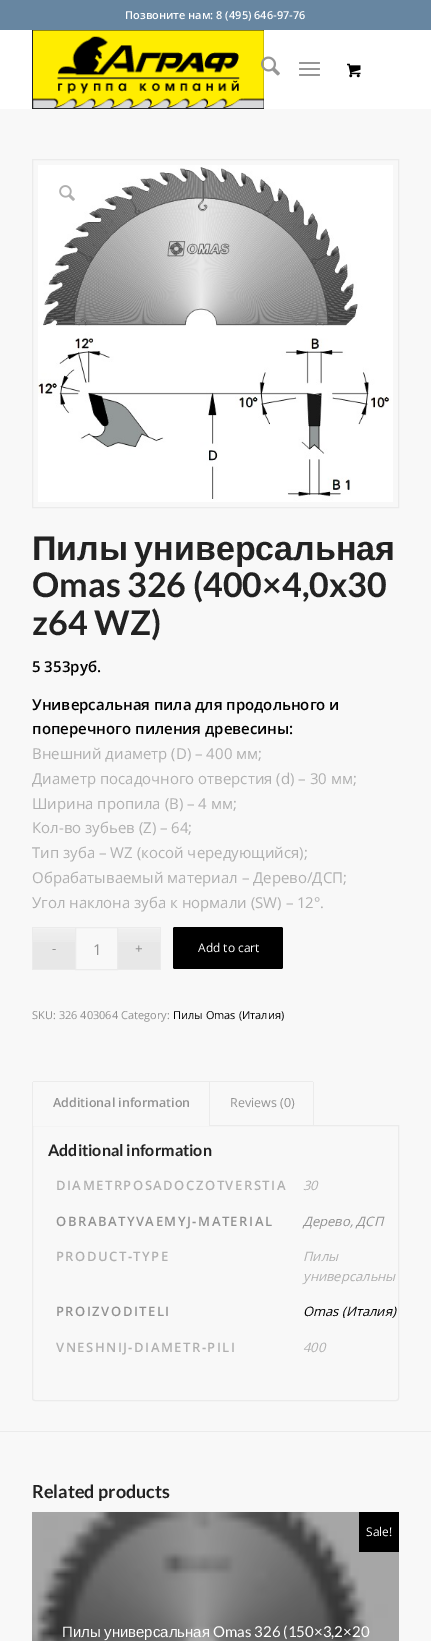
%!PS-Adobe-3.0
%%BoundingBox: 0 0 431 1641
%%LanguageLevel: 3
%%Pages: 1
%%EndComments
%%BeginProlog
/rrect { 5 dict begin { /r /h /w /y /x } { exch def } forall
  x r add y moveto x w add y 2 copy h add r arct x w add y h add x 1 index r arct
  x y h add x y r arct x y 2 copy exch w add exch r arct closepath end } def
/drawimage { 5 dict begin { /h /w /y /x /name } { exch def } forall
  gsave x y translate w h scale
  w h 8 [w 0 0 h 0 0] name (r) file false 3 colorimage grestore end } def
%%EndProlog
%%BeginSetup
<< /PageSize [431 1641] >> setpagedevice
%%EndSetup
%%Page: 1 1
0 1641 translate 1 -1 scale
4 setmiterlimit
0.973 setgray
0 0 431 1641 rectfill
0.404 0.525 0.631 setrgbcolor
0 0 431 30 rectfill
1 setgray
0 30 431 79 rectfill
(images/1.raw) 32 30 232 79 drawimage
(images/2.raw) 261 56 19 20 drawimage
0.588 setgray
299 68 21 2 1 rrect fill
299 62 21 2 1 rrect fill
299 74 21 2 1 rrect fill
(images/3.raw) 347 63 14 15 drawimage
0.922 setgray
32.5 159.5 366 348 rectstroke
(images/4.raw) 38 165 355 337 drawimage
(images/5.raw) 59 185 16 16 drawimage
0.906 setgray
33 928 42 41 rectfill
(images/6.raw) 33 928 42 14 drawimage
118 928 42 41 rectfill
(images/6.raw) 118 928 42 14 drawimage
0.922 setgray
32 927 43 1 rectfill
32 969 43 1 rectfill
32 927 1 43 rectfill
75.5 927.5 42 42 rectstroke
118 927 43 1 rectfill
160 927 1 43 rectfill
118 969 43 1 rectfill
0 setgray
173 927 110 42 2 rrect fill
0.922 setgray
newpath 32.5 1125.5 moveto 398.5 1125.5 lineto 398.5 1398 lineto 398.5 1399.5 397.5 1400.5 396 1400.5 curveto 35 1400.5 lineto 33.5 1400.5 32.5 1399.5 32.5 1398 curveto closepath stroke
0.973 setgray
32 1125 177 1 rectfill
0.922 setgray
33 1081 280 1 rectfill
209 1081 1 45 rectfill
32 1082 1 44 rectfill
313 1082 1 44 rectfill
0 1431 431 1 rectfill
(images/7.raw) 32 1512 367 129 drawimage
0 setgray
359 1512 40 40 rectfill
/OpenSans-SemiBold [11 0 0 -11 0 0] selectfont
1 setgray
125 19 moveto (Позвоните нам: 8 \(495\) 646-97-76) show
/LiberationSans-Bold [34 0 0 -34 0 0] selectfont
0.133 setgray
32 560 moveto -3 0 32 (Пилы универсальная) widthshow
/Lato-Bold [34 0 0 -34 0 0] selectfont
32 597 moveto (Omas 326 \(400×4,0x30) show
32 635 moveto (z64 WZ\)) show
/OpenSans-SemiBold [15 0 0 -15 0 0] selectfont
0 setgray
32 672 moveto (5 353руб.) show
32 710 moveto (Универсальная пила для продольного и) show
32 734 moveto (поперечного пиления древесины:) show
/OpenSans-Regular [15 0 0 -15 0 0] selectfont
0.69 setgray
32 759 moveto (Внешний диаметр \(D\) – 400 мм;) show
32 784 moveto (Диаметр посадочного отверстия \(d\) – 30 мм;) show
32 809 moveto (Ширина пропила \(B\) – 4 мм;) show
32 833 moveto (Кол-во зубьев \(Z\) – 64;) show
32 858 moveto (Тип зуба – WZ \(косой чередующийся\);) show
32 883 moveto (Обрабатываемый материал – Дерево/ДСП;) show
32 908 moveto (Угол наклона зуба к нормали \(SW\) – 12°.) show
/LiberationSans-Regular [13 0 0 -13 0 0] selectfont
0.569 setgray
52 953 moveto (-) show
/OpenSans-Regular [15 0 0 -15 0 0] selectfont
93 955 moveto (1) show
/LiberationSans-Regular [13 0 0 -13 0 0] selectfont
135 953 moveto (+) show
/OpenSans-Regular [12 0 0 -12 0 0] selectfont
1 setgray
198 952 moveto (Add to cart) show
/OpenSans-Regular [11 0 0 -11 0 0] selectfont
0.569 setgray
32 1019 moveto (SKU: 326 403064 Category:) show
0 setgray
173 1019 moveto (Пилы Omas \(Италия\)) show
/OpenSans-SemiBold [12.5 0 0 -12.5 0 0] selectfont
0.569 setgray
53 1107 moveto (Additional information) show
/OpenSans-Regular [12.5 0 0 -12.5 0 0] selectfont
230 1107 moveto (Reviews \(0\)) show
/Lato-Bold [16 0 0 -16 0 0] selectfont
0.133 setgray
48 1156 moveto (Additional information) show
/OpenSans-SemiBold [13 0 0 -13 0 0] selectfont
0.69 setgray
56 1190 moveto 1.5 0 (DIAMETRPOSADOCZOTVERSTIA) ashow
/OpenSans-Italic [13 0 0 -13 0 0] selectfont
303 1190 moveto (30) show
/OpenSans-SemiBold [13 0 0 -13 0 0] selectfont
0.569 setgray
56 1226 moveto 1.5 0 (OBRABATYVAEMYJ-MATERIAL) ashow
/OpenSans-Italic [13 0 0 -13 0 0] selectfont
303 1226 moveto (Дерево, ДСП) show
/OpenSans-SemiBold [13 0 0 -13 0 0] selectfont
0.69 setgray
56 1261 moveto 1.5 0 (PRODUCT-TYPE) ashow
/OpenSans-Italic [13 0 0 -13 0 0] selectfont
303 1261 moveto (Пилы) show
303 1281 moveto (универсальны) show
/OpenSans-SemiBold [13 0 0 -13 0 0] selectfont
0.569 setgray
56 1316 moveto 1.5 0 (PROIZVODITELI) ashow
/OpenSans-Italic [13 0 0 -13 0 0] selectfont
0 setgray
303 1316 moveto (Omas \(Италия\)) show
/OpenSans-SemiBold [13 0 0 -13 0 0] selectfont
0.69 setgray
56 1352 moveto 1.5 0 (VNESHNIJ-DIAMETR-PILI) ashow
/OpenSans-Italic [13 0 0 -13 0 0] selectfont
303 1352 moveto (400) show
/Lato-Bold [18 0 0 -18 0 0] selectfont
0.133 setgray
32 1498 moveto (Related products) show
/OpenSans-Regular [12 0 0 -12 0 0] selectfont
1 setgray
366 1536 moveto (Sale!) show
/LiberationSans-Regular [15 0 0 -15 0 0] selectfont
62 1637 moveto (Пилы) show
104 1637 moveto (универсальная) show
/Lato-Regular [15 0 0 -15 0 0] selectfont
213 1637 moveto (Omas 326 \(150×3,2×20) show
showpage
%%EOF
